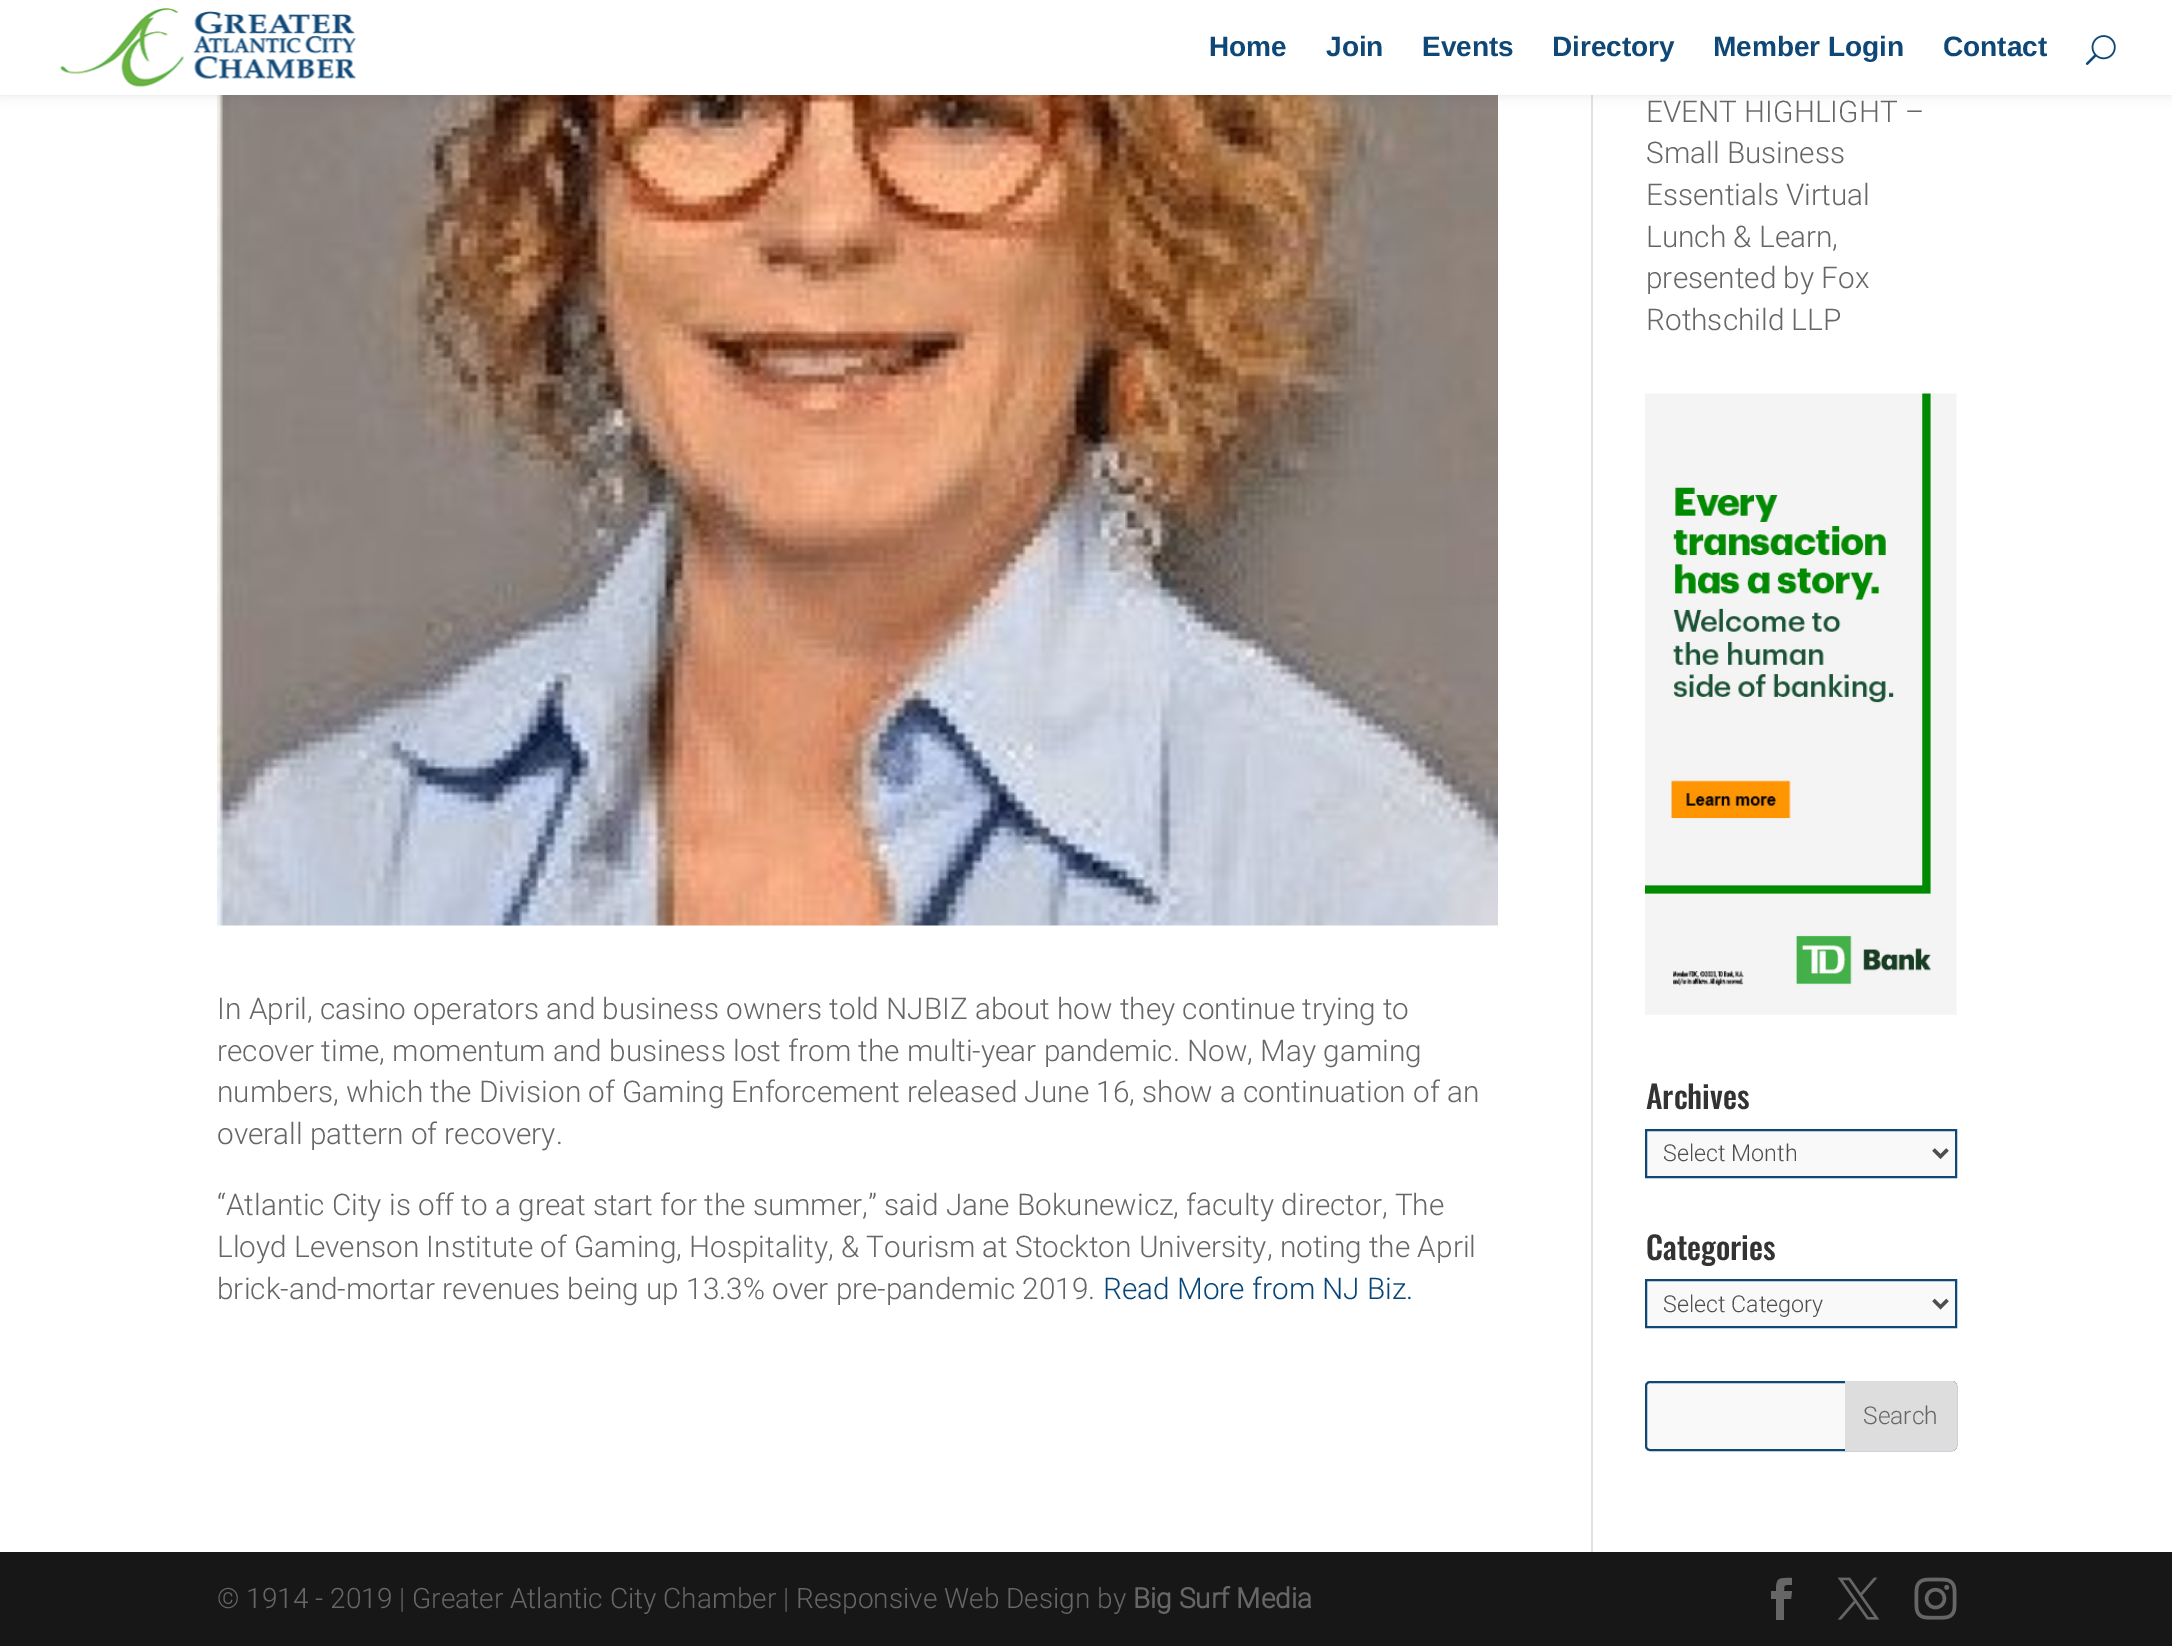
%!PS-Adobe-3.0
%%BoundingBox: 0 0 2172 1646
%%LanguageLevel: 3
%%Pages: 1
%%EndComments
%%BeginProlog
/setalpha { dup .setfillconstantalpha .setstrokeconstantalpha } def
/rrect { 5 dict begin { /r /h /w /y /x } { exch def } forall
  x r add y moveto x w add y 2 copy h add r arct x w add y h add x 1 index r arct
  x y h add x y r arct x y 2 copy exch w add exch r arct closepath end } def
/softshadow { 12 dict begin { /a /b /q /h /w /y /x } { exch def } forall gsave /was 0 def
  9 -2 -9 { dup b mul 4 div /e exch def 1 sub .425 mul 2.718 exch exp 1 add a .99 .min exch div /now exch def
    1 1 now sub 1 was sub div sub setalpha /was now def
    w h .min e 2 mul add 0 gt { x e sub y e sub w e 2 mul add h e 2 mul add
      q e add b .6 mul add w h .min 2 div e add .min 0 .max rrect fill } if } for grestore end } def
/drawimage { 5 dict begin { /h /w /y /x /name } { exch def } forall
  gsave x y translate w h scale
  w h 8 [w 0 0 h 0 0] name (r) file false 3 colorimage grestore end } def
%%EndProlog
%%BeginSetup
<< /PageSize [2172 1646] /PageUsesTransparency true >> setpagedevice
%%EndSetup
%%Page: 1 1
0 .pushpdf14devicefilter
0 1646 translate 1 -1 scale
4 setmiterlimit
1 setgray
0 0 2172 1646 rectfill
0.886 setgray
1591 95 2 1457 rectfill
(images/3.raw) 217 95 1281 831 drawimage
0 setgray
0 0 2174 95 0 6 0.1 softshadow
1 setgray
0 0 2172 95 rectfill
(images/1.raw) 60 8 296 79 drawimage
(images/2.raw) 2085 35 31 30 drawimage
(images/4.raw) 1645 393 312 622 drawimage
0.976 setgray
newpath 1646 1130 moveto 1956 1130 lineto 1956 1177 lineto 1646 1177 lineto closepath gsave fill grestore
0.059 0.282 0.467 setrgbcolor
2 setlinewidth
stroke
0.306 setgray
3.5 setlinewidth
newpath 1933.5 1149.5 moveto 1940.5 1156.5 lineto 1947.5 1149.5 lineto stroke
0.976 setgray
newpath 1646 1280 moveto 1956 1280 lineto 1956 1327 lineto 1646 1327 lineto closepath gsave fill grestore
0.059 0.282 0.467 setrgbcolor
2 setlinewidth
stroke
0.306 setgray
3.5 setlinewidth
newpath 1933.5 1300 moveto 1940.5 1307 lineto 1947.5 1300 lineto stroke
0.976 setgray
1646 1382 310 68 4 rrect gsave fill grestore
0.059 0.282 0.467 setrgbcolor
2 setlinewidth
stroke
0.867 setgray
newpath 1846 1382 moveto 1952 1382 lineto 1954 1382 1956 1384 1956 1386 curveto 1956 1446 lineto 1956 1448 1954 1450 1952 1450 curveto 1846 1450 lineto closepath gsave fill grestore
stroke
0.09 setgray
0 1552 2172 94 rectfill
0.4 setgray
newpath 1776 1620 moveto 1784 1620 lineto 1784 1599 lineto 1791 1599 lineto 1792 1591 lineto 1784 1591 lineto 1784 1584 1784 1585 1792 1585 curveto 1792 1578 lineto 1779 1578 1776 1577 1776 1591 curveto 1771 1591 lineto 1771 1599 lineto 1776 1599 lineto closepath fill
(images/5.raw) 1837 1577 43 43 drawimage
(images/6.raw) 1914 1577 43 43 drawimage
/LiberationSans-Bold [28 0 0 -28 0 0] selectfont
0.059 0.282 0.467 setrgbcolor
1209 56 moveto (Home) show
1326 56 moveto (Join) show
1422 56 moveto (Events) show
1552 56 moveto (Directory) show
1713 56 moveto (Member Login) show
1943 56 moveto (Contact) show
/Roboto-Light [29.75 0 0 -29.75 0 0] selectfont
0.4 setgray
217 1019 moveto (In April, casino operators and business owners told NJBIZ about how they continue trying to) show
217 1061 moveto (recover time, momentum and business lost from the multi-year pandemic. Now, May gaming) show
217 1102 moveto (numbers, which the Division of Gaming Enforcement released June 16, show a continuation of an) show
217 1144 moveto (overall pattern of recovery.) show
217 1215 moveto (“Atlantic City is off to a great start for the summer,” said Jane Bokunewicz, faculty director, The) show
217 1257 moveto (Lloyd Levenson Institute of Gaming, Hospitality, & Tourism at Stockton University, noting the April) show
217 1299 moveto (brick-and-mortar revenues being up 13.3% over pre-pandemic 2019.) show
0.031 0.271 0.467 setrgbcolor
1103 1299 moveto (Read More from NJ Biz.) show
0.4 setgray
1646 122 moveto (EVENT HIGHLIGHT –) show
1646 163 moveto (Small Business) show
1646 205 moveto (Essentials Virtual) show
1646 247 moveto (Lunch & Learn,) show
1646 288 moveto (presented by Fox) show
1646 330 moveto (Rothschild LLP) show
/Oswald-Medium [31.5 0 0 -31.5 0 0] selectfont
0.2 setgray
1646 1109 moveto (Archives) show
/Roboto-Light [23.25 0 0 -23.25 0 0] selectfont
0.306 setgray
1663 1161 moveto (Select Month) show
/Oswald-Medium [31.5 0 0 -31.5 0 0] selectfont
0.2 setgray
1646 1260 moveto (Categories) show
/Roboto-Light [23.25 0 0 -23.25 0 0] selectfont
0.306 setgray
1663 1312 moveto (Select Category) show
/Roboto-Light [24.5 0 0 -24.5 0 0] selectfont
0.4 setgray
1863 1424 moveto (Search) show
/Roboto-Light [28 0 0 -28 0 0] selectfont
217 1608 moveto (© 1914 - 2019 | Greater Atlantic City Chamber | Responsive Web Design by) show
/Roboto-Bold [28 0 0 -28 0 0] selectfont
1133 1608 moveto (Big Surf Media) show
.poppdf14devicefilter showpage
%%EOF
